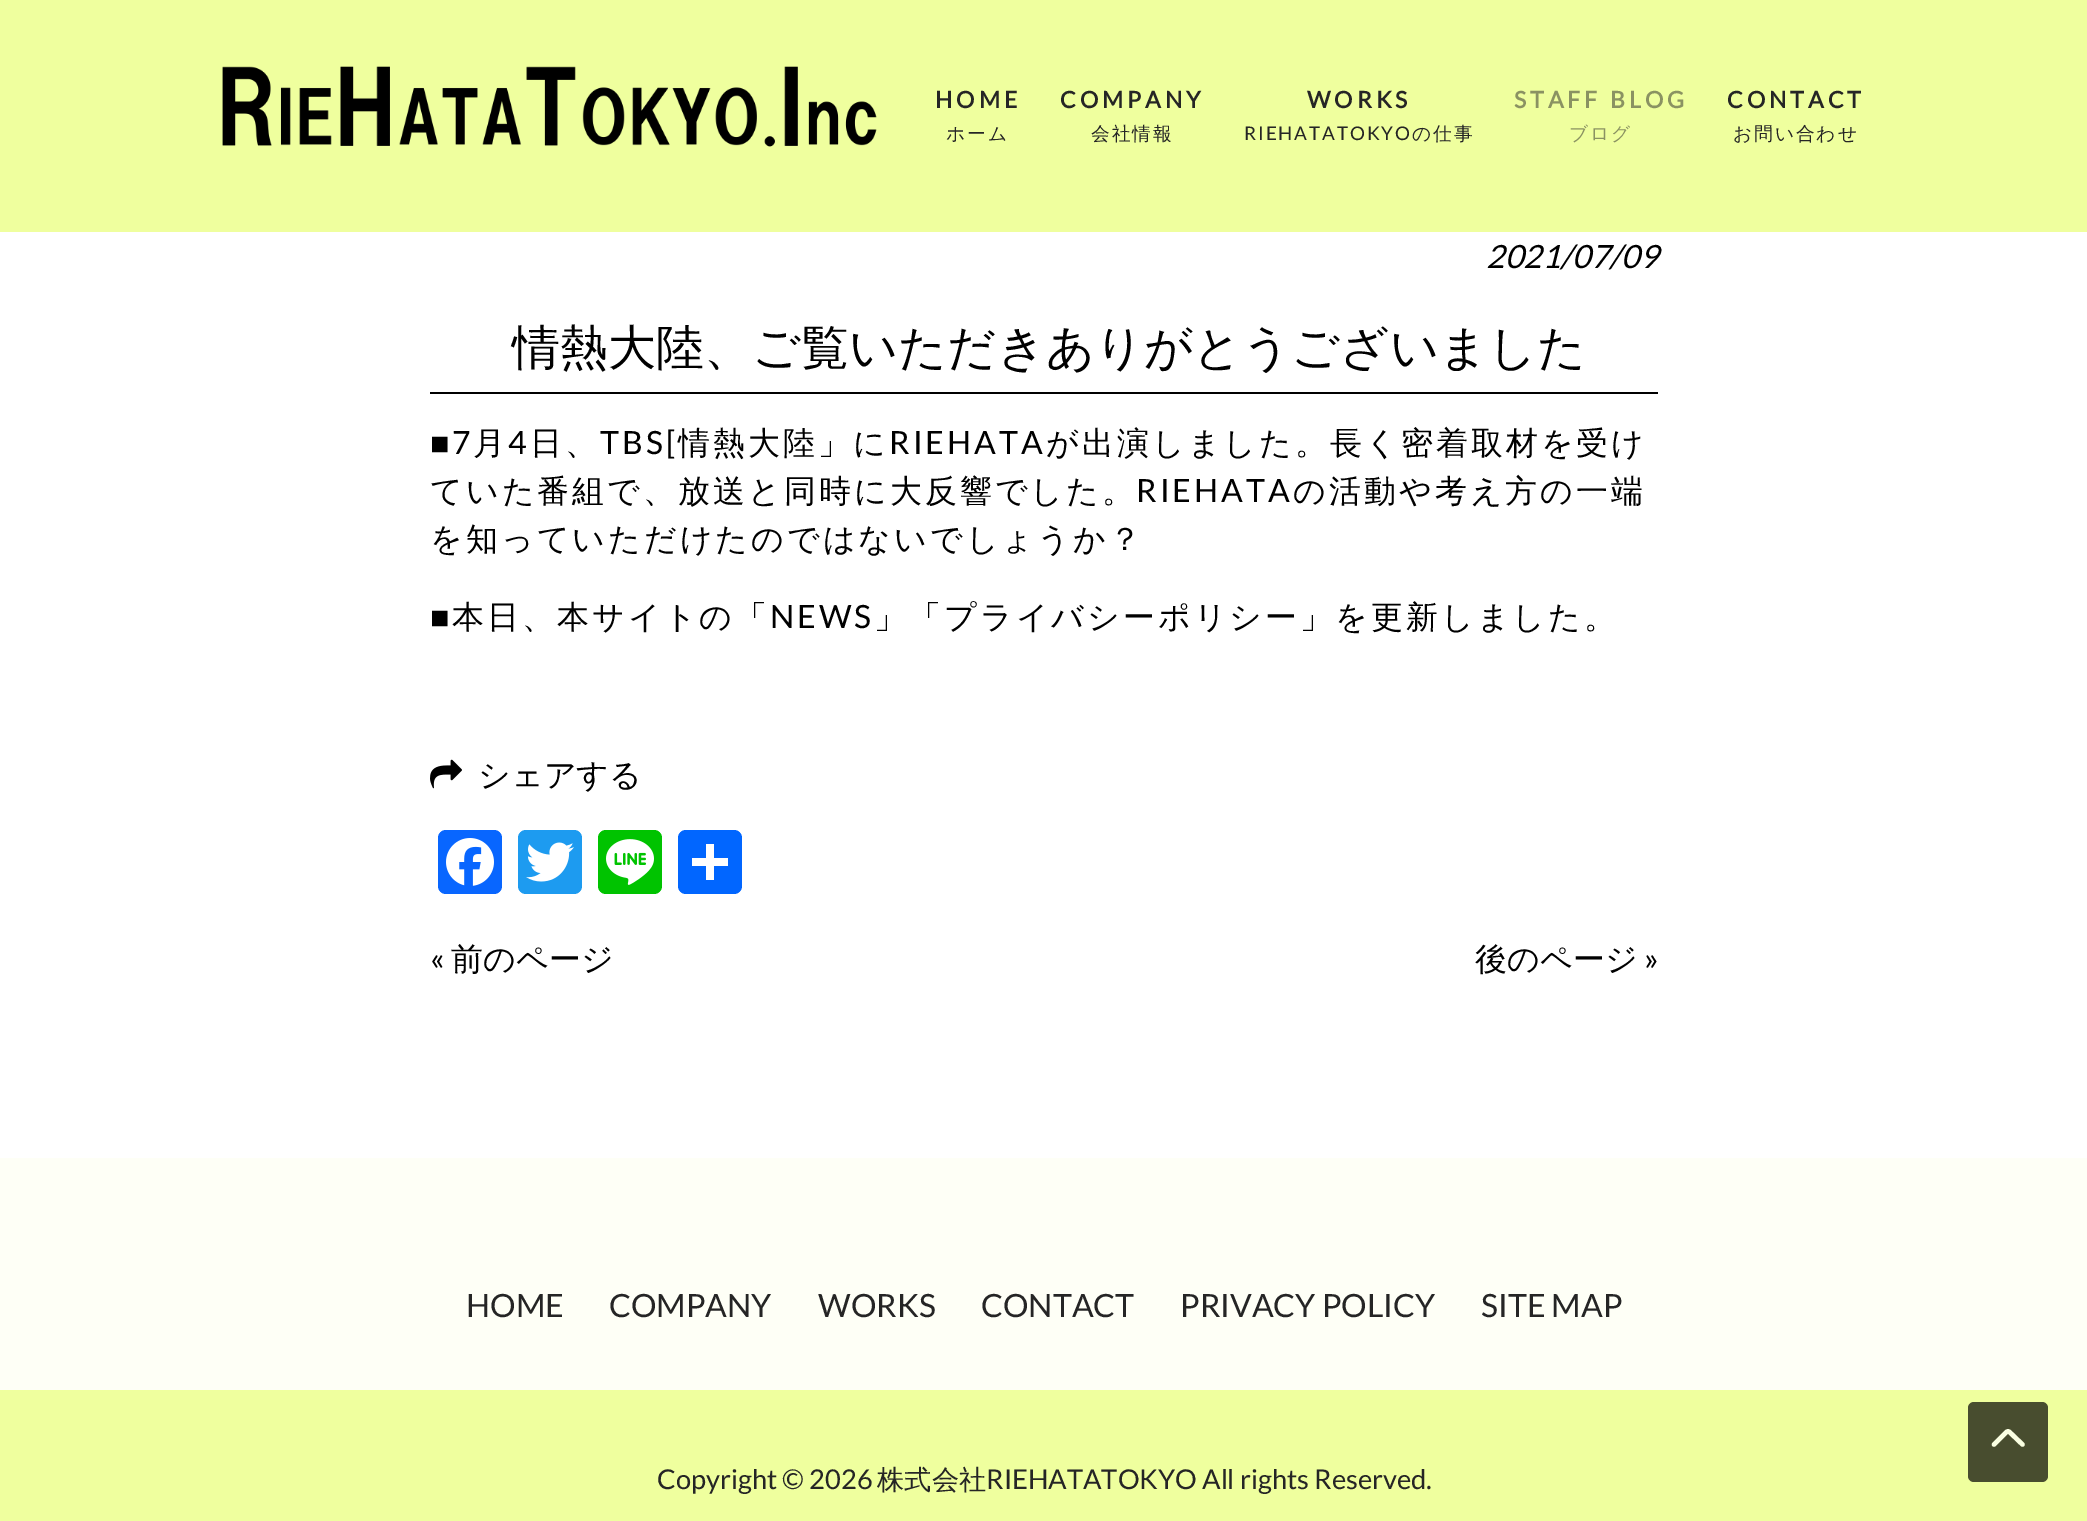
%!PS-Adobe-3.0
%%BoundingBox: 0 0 2087 1521
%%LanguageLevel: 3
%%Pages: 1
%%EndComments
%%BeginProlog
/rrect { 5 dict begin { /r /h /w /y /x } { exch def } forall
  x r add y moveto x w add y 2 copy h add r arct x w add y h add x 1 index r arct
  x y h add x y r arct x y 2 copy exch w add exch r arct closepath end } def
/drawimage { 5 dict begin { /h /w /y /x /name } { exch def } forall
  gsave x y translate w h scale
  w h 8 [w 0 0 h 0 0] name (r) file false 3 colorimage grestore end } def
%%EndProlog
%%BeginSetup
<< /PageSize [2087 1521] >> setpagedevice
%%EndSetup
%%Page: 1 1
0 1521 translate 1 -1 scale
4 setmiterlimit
1 setgray
0 0 2087 1521 rectfill
0.937 1 0.62 setrgbcolor
0 0 2087 232 rectfill
(images/1.raw) 222 66 655 81 drawimage
0 setgray
430 392 1228 2 rectfill
(images/2.raw) 430 759 32 30 drawimage
0.031 0.4 1 setrgbcolor
438 830 64 64 8 rrect fill
(images/3.raw) 446 838 48 48 drawimage
0.114 0.608 0.941 setrgbcolor
518 830 64 64 8 rrect fill
(images/4.raw) 526 842 48 40 drawimage
0 0.765 0 setrgbcolor
598 830 64 64 8 rrect fill
(images/5.raw) 606 839 48 46 drawimage
0.004 0.4 1 setrgbcolor
678 830 64 64 8 rrect fill
1 setgray
706 844 8 36 rectfill
692 858 36 8 rectfill
0.996 1 0.965 setrgbcolor
0 1158 2087 232 rectfill
0.937 1 0.62 setrgbcolor
0 1390 2087 131 rectfill
0.282 0.302 0.184 setrgbcolor
1968 1402 80 80 6 rrect fill
0.98 1 0.886 setrgbcolor
4.5 setlinewidth
1 setlinecap
2 setlinejoin
newpath 2022.5 1444.5 moveto 2010 1432.5 lineto 2009 1431 2007 1431 2006 1432.5 curveto 1994 1444.5 lineto stroke
/Lato-Bold [23 0 0 -23 0 0] selectfont
0.145 setgray
935 108 moveto 4 0 (HOME) ashow
/WenQuanYiZenHei-Medium [18.75 0 0 -18.75 0 0] selectfont
946 140 moveto 1.9 0 (ホーム) ashow
/Lato-Bold [23 0 0 -23 0 0] selectfont
1060 108 moveto 4 0 (COMPANY) ashow
/WenQuanYiZenHei-Medium [18.75 0 0 -18.75 0 0] selectfont
1091 140 moveto 1.9 0 (会社情報) ashow
/Lato-Bold [23 0 0 -23 0 0] selectfont
1307 108 moveto 4 0 (WORKS) ashow
/Lato-Regular [18.75 0 0 -18.75 0 0] selectfont
1244 140 moveto 1.9 0 (RIEHATATOKYO) ashow
/WenQuanYiZenHei-Medium [18.75 0 0 -18.75 0 0] selectfont
1412 140 moveto 1.9 0 (の仕事) ashow
/Lato-Bold [23 0 0 -23 0 0] selectfont
0.541 0.573 0.384 setrgbcolor
1514 108 moveto 4 0 (STAFF BLOG) ashow
/WenQuanYiZenHei-Medium [18.75 0 0 -18.75 0 0] selectfont
1569 140 moveto 1.9 0 (ブログ) ashow
/Lato-Bold [23 0 0 -23 0 0] selectfont
0.145 setgray
1727 108 moveto 4 0 (CONTACT) ashow
/WenQuanYiZenHei-Medium [18.75 0 0 -18.75 0 0] selectfont
1733 140 moveto 1.9 0 (お問い合わせ) ashow
/Lato-Italic [32 0 0 -32 0 0] selectfont
0 setgray
1486 268 moveto (2021/07/09) show
/WenQuanYiZenHei-Medium [48 0 0 -48 0 0] selectfont
512 364 moveto (情熱大陸、ご覧いただきありがとうございました) show
/LiberationSerif-Regular [32 0 0 -32 0 0] selectfont
430 454 moveto 3 0 (■) ashow
/Lato-Regular [32 0 0 -32 0 0] selectfont
452 454 moveto 3 0 (7) ashow
/WenQuanYiZenHei-Medium [32 0 0 -32 0 0] selectfont
473 454 moveto 3 0 (月) ashow
/Lato-Regular [32 0 0 -32 0 0] selectfont
508 454 moveto 3 0 (4) ashow
/WenQuanYiZenHei-Medium [32 0 0 -32 0 0] selectfont
530 454 moveto 3 0 (日、) ashow
/Lato-Regular [32 0 0 -32 0 0] selectfont
600 454 moveto 3 0 (TBS[) ashow
/WenQuanYiZenHei-Medium [32 0 0 -32 0 0] selectfont
678 454 moveto 3 0 (情熱大陸」に) ashow
/Lato-Regular [32 0 0 -32 0 0] selectfont
889 454 moveto 3 0 (RIEHATA) ashow
/WenQuanYiZenHei-Medium [32 0 0 -32 0 0] selectfont
1046 454 moveto 3 0 (が出演しました。長く密着取材を受け) ashow
430 502 moveto 3 0 (ていた番組で、放送と同時に大反響でした。) ashow
/Lato-Regular [32 0 0 -32 0 0] selectfont
1136 502 moveto 3 0 (RIEHATA) ashow
/WenQuanYiZenHei-Medium [32 0 0 -32 0 0] selectfont
1293 502 moveto 3 0 (の活動や考え方の一端) ashow
430 550 moveto 3 0 (を知っていただけたのではないでしょうか？) ashow
/LiberationSerif-Regular [32 0 0 -32 0 0] selectfont
430 628 moveto 3 0 (■) ashow
/WenQuanYiZenHei-Medium [32 0 0 -32 0 0] selectfont
452 628 moveto 3 0 (本日、本サイトの「) ashow
/Lato-Regular [32 0 0 -32 0 0] selectfont
770 628 moveto 3 0 (NEWS) ashow
/WenQuanYiZenHei-Medium [32 0 0 -32 0 0] selectfont
874 628 moveto 3 0 (」「プライバシーポリシー」を更新しました。) ashow
478 786 moveto (シェアする) show
/Lato-Regular [32 0 0 -32 0 0] selectfont
430 970 moveto («) show
/WenQuanYiZenHei-Medium [32 0 0 -32 0 0] selectfont
451 970 moveto (前のページ) show
1475 970 moveto (後のページ) show
/Lato-Regular [32 0 0 -32 0 0] selectfont
1644 970 moveto (») show
0.145 setgray
466 1317 moveto (HOME) show
609 1317 moveto (COMPANY) show
818 1317 moveto (WORKS) show
981 1317 moveto (CONTACT) show
1180 1317 moveto (PRIVACY POLICY) show
1481 1317 moveto (SITE MAP) show
/Lato-Regular [27.25 0 0 -27.25 0 0] selectfont
657 1489 moveto (Copyright © 2026) show
/WenQuanYiZenHei-Medium [27.25 0 0 -27.25 0 0] selectfont
877 1489 moveto (株式会社) show
/Lato-Regular [27.25 0 0 -27.25 0 0] selectfont
986 1489 moveto (RIEHATATOKYO All rights Reserved.) show
showpage
%%EOF
